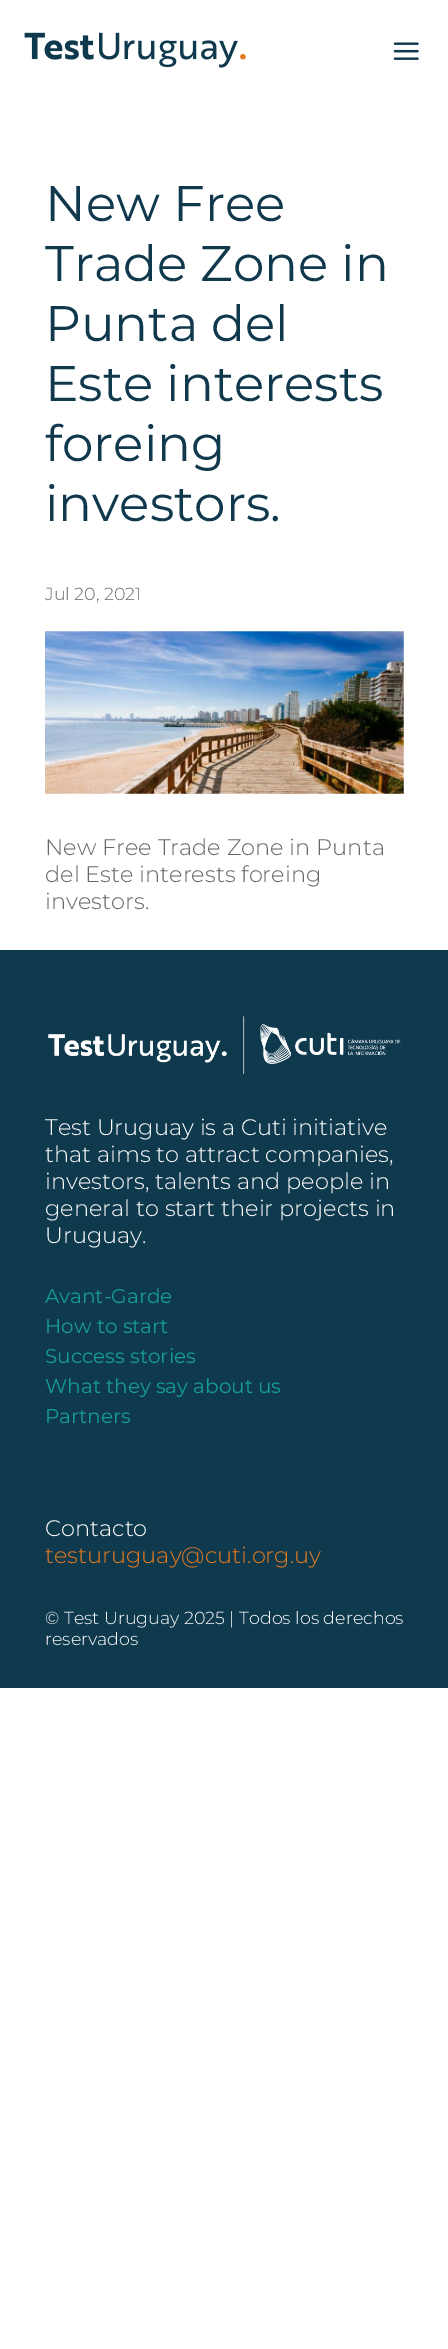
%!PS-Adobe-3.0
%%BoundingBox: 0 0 448 2349
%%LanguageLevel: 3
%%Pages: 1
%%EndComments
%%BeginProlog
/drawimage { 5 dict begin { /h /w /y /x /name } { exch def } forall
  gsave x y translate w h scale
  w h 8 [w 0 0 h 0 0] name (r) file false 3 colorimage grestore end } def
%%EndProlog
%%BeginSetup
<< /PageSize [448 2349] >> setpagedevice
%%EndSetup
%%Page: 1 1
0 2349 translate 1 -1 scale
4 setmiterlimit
1 setgray
0 0 448 2349 rectfill
(images/1.raw) 24 32 222 36 drawimage
(images/2.raw) 393 42 26 18 drawimage
(images/3.raw) 45 631 359 163 drawimage
0.059 0.224 0.302 setrgbcolor
0 950 448 738 rectfill
(images/4.raw) 48 1016 353 58 drawimage
/Montserrat-Regular [50 0 0 -50 0 0] selectfont
0.063 0.224 0.302 setrgbcolor
45 221 moveto (New Free) show
45 281 moveto (Trade Zone in) show
45 341 moveto (Punta del) show
45 401 moveto (Este interests) show
45 461 moveto (foreing) show
45 521 moveto (investors.) show
/Montserrat-Light [17.5 0 0 -17.5 0 0] selectfont
0.4 setgray
45 600 moveto (Jul 20, 2021) show
/Montserrat-Light [22.5 0 0 -22.5 0 0] selectfont
45 855 moveto (New Free Trade Zone in Punta) show
45 882 moveto (del Este interests foreing) show
45 909 moveto (investors.) show
1 setgray
45 1135 moveto (Test Uruguay is a Cuti initiative) show
45 1162 moveto (that aims to attract companies,) show
45 1189 moveto (investors, talents and people in) show
45 1216 moveto (general to start their projects in) show
45 1243 moveto (Uruguay.) show
/Montserrat-Regular [20 0 0 -20 0 0] selectfont
0.09 0.612 0.58 setrgbcolor
45 1303 moveto (Avant-Garde) show
45 1333 moveto (How to start) show
45 1363 moveto (Success stories) show
45 1393 moveto (What they say about us) show
45 1423 moveto (Partners) show
/Montserrat-Light [22.5 0 0 -22.5 0 0] selectfont
1 setgray
45 1536 moveto (Contacto) show
0.898 0.478 0.122 setrgbcolor
45 1563 moveto (testuruguay@cuti.org.uy) show
/Montserrat-Light [17.5 0 0 -17.5 0 0] selectfont
1 setgray
45 1624 moveto (© Test Uruguay 2025 | Todos los derechos) show
45 1645 moveto (reservados) show
showpage
%%EOF
